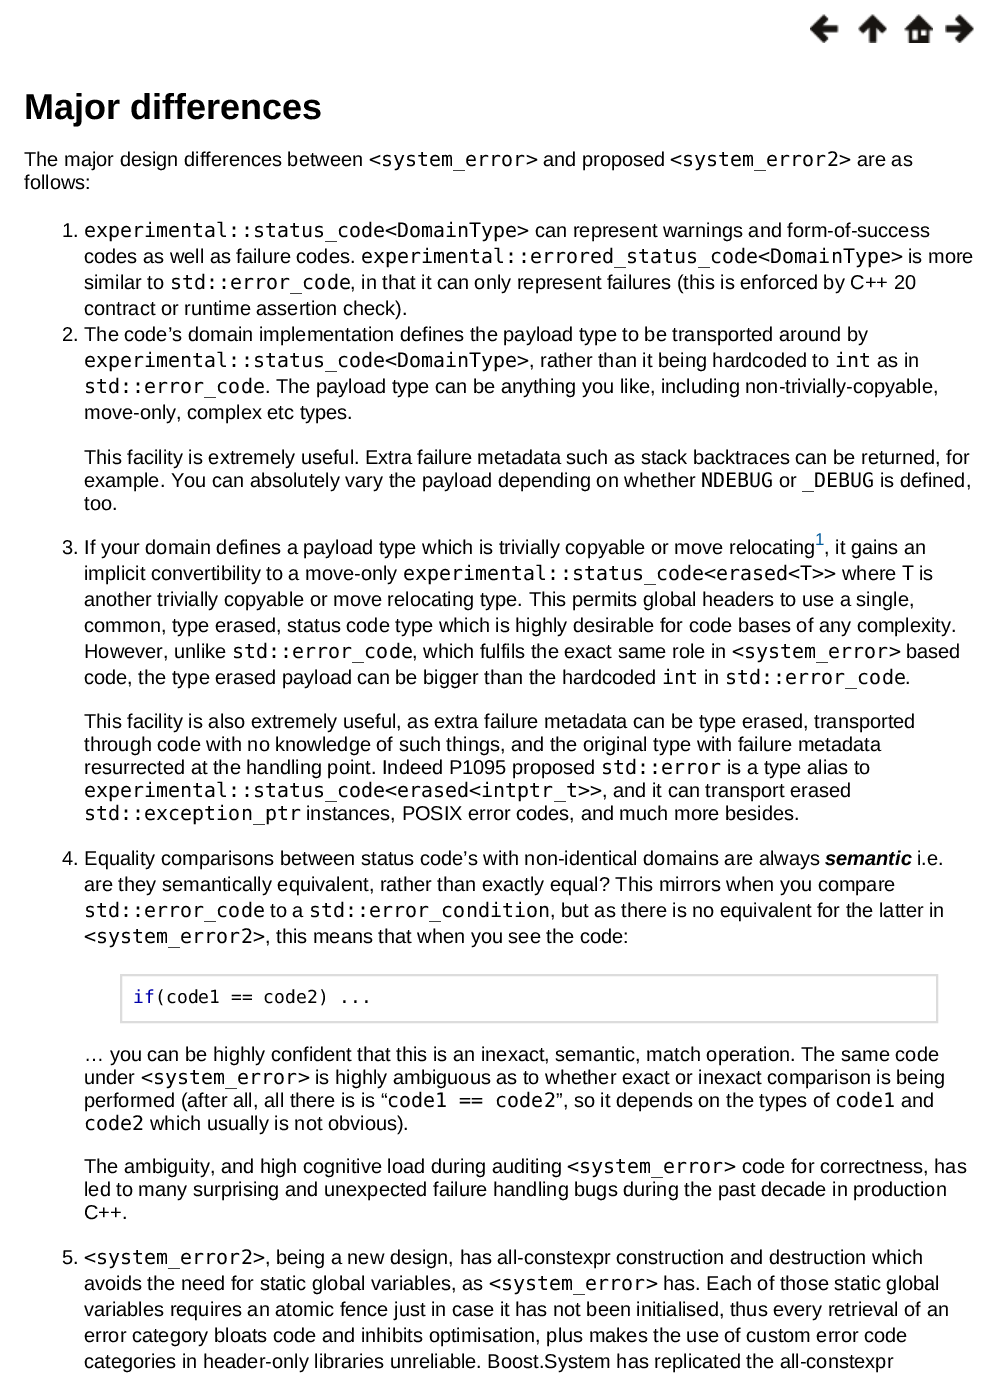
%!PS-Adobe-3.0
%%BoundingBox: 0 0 997 1381
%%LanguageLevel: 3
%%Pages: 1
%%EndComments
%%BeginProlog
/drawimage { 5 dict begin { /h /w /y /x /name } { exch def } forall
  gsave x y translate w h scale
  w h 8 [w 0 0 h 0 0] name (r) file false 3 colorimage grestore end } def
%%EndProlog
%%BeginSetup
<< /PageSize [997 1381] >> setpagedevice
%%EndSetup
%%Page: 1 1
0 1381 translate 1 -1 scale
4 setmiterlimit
1 setgray
0 0 997 1381 rectfill
(images/1.raw) 810 14 29 29 drawimage
(images/2.raw) 858 14 29 29 drawimage
(images/3.raw) 904 14 29 29 drawimage
(images/4.raw) 945 14 29 29 drawimage
0.863 setgray
2 setlinewidth
121 975 816 47 rectstroke
/LiberationSans-Bold [36 0 0 -36 0 0] selectfont
0 setgray
24 119 moveto (Major differences) show
/LiberationSans-Regular [20 0 0 -20 0 0] selectfont
24 166 moveto (The major design differences between) show
/DejaVuSansMono-Regular [20 0 0 -20 0 0] selectfont
369 166 moveto (<system_error>) show
/LiberationSans-Regular [20 0 0 -20 0 0] selectfont
543 166 moveto (and proposed) show
/DejaVuSansMono-Regular [20 0 0 -20 0 0] selectfont
670 166 moveto (<system_error2>) show
/LiberationSans-Regular [20 0 0 -20 0 0] selectfont
857 166 moveto (are as) show
24 189 moveto (follows:) show
62 237 moveto (1.) show
/DejaVuSansMono-Regular [20 0 0 -20 0 0] selectfont
84 237 moveto (experimental::status_code<DomainType>) show
/LiberationSans-Regular [20 0 0 -20 0 0] selectfont
535 237 moveto (can represent warnings and form-of-success) show
84 263 moveto (codes as well as failure codes.) show
/DejaVuSansMono-Regular [20 0 0 -20 0 0] selectfont
361 263 moveto (experimental::errored_status_code<DomainType>) show
/LiberationSans-Regular [20 0 0 -20 0 0] selectfont
908 263 moveto (is more) show
84 289 moveto (similar to) show
/DejaVuSansMono-Regular [20 0 0 -20 0 0] selectfont
170 289 moveto (std::error_code) show
/LiberationSans-Regular [20 0 0 -20 0 0] selectfont
350 289 moveto (, in that it can only represent failures \(this is enforced by C++ 20) show
84 315 moveto (contract or runtime assertion check\).) show
62 341 moveto (2. The code’s domain implementation defines the payload type to be transported around by) show
/DejaVuSansMono-Regular [20 0 0 -20 0 0] selectfont
84 367 moveto (experimental::status_code<DomainType>) show
/LiberationSans-Regular [20 0 0 -20 0 0] selectfont
529 367 moveto (, rather than it being hardcoded to) show
/DejaVuSansMono-Regular [20 0 0 -20 0 0] selectfont
835 367 moveto (int) show
/LiberationSans-Regular [20 0 0 -20 0 0] selectfont
877 367 moveto (as in) show
/DejaVuSansMono-Regular [20 0 0 -20 0 0] selectfont
84 393 moveto (std::error_code) show
/LiberationSans-Regular [20 0 0 -20 0 0] selectfont
265 393 moveto (. The payload type can be anything you like, including non-trivially-copyable,) show
84 419 moveto (move-only, complex etc types.) show
84 464 moveto (This facility is extremely useful. Extra failure metadata such as stack backtraces can be returned, for) show
84 487 moveto (example. You can absolutely vary the payload depending on whether) show
/DejaVuSansMono-Regular [20 0 0 -20 0 0] selectfont
701 487 moveto (NDEBUG) show
/LiberationSans-Regular [20 0 0 -20 0 0] selectfont
779 487 moveto (or) show
/DejaVuSansMono-Regular [20 0 0 -20 0 0] selectfont
802 487 moveto (_DEBUG) show
/LiberationSans-Regular [20 0 0 -20 0 0] selectfont
880 487 moveto (is defined,) show
84 510 moveto (too.) show
62 554 moveto (3. If your domain defines a payload type which is trivially copyable or move relocating) show
/LiberationSans-Regular [17 0 0 -17 0 0] selectfont
0 0.353 0.612 setrgbcolor
815 545 moveto (1) show
/LiberationSans-Regular [20 0 0 -20 0 0] selectfont
0 setgray
824 554 moveto (, it gains an) show
84 580 moveto (implicit convertibility to a move-only) show
/DejaVuSansMono-Regular [20 0 0 -20 0 0] selectfont
403 580 moveto (experimental::status_code<erased<T>>) show
/LiberationSans-Regular [20 0 0 -20 0 0] selectfont
842 580 moveto (where) show
/DejaVuSansMono-Regular [20 0 0 -20 0 0] selectfont
902 580 moveto (T) show
/LiberationSans-Regular [20 0 0 -20 0 0] selectfont
919 580 moveto (is) show
84 606 moveto (another trivially copyable or move relocating type. This permits global headers to use a single,) show
84 632 moveto (common, type erased, status code type which is highly desirable for code bases of any complexity.) show
84 658 moveto (However, unlike) show
/DejaVuSansMono-Regular [20 0 0 -20 0 0] selectfont
232 658 moveto (std::error_code) show
/LiberationSans-Regular [20 0 0 -20 0 0] selectfont
412 658 moveto (, which fulfils the exact same role in) show
/DejaVuSansMono-Regular [20 0 0 -20 0 0] selectfont
732 658 moveto (<system_error>) show
/LiberationSans-Regular [20 0 0 -20 0 0] selectfont
906 658 moveto (based) show
84 684 moveto (code, the type erased payload can be bigger than the hardcoded) show
/DejaVuSansMono-Regular [20 0 0 -20 0 0] selectfont
662 684 moveto (int) show
/LiberationSans-Regular [20 0 0 -20 0 0] selectfont
704 684 moveto (in) show
/DejaVuSansMono-Regular [20 0 0 -20 0 0] selectfont
725 684 moveto (std::error_code) show
/LiberationSans-Regular [20 0 0 -20 0 0] selectfont
905 684 moveto (.) show
84 728 moveto (This facility is also extremely useful, as extra failure metadata can be type erased, transported) show
84 751 moveto (through code with no knowledge of such things, and the original type with failure metadata) show
84 774 moveto (resurrected at the handling point. Indeed P1095 proposed) show
/DejaVuSansMono-Regular [20 0 0 -20 0 0] selectfont
601 774 moveto (std::error) show
/LiberationSans-Regular [20 0 0 -20 0 0] selectfont
727 774 moveto (is a type alias to) show
/DejaVuSansMono-Regular [20 0 0 -20 0 0] selectfont
84 797 moveto (experimental::status_code<erased<intptr_t>>) show
/LiberationSans-Regular [20 0 0 -20 0 0] selectfont
602 797 moveto (, and it can transport erased) show
/DejaVuSansMono-Regular [20 0 0 -20 0 0] selectfont
84 820 moveto (std::exception_ptr) show
/LiberationSans-Regular [20 0 0 -20 0 0] selectfont
306 820 moveto (instances, POSIX error codes, and much more besides.) show
62 865 moveto (4. Equality comparisons between status code’s with non-identical domains are always) show
/LiberationSans-BoldItalic [20 0 0 -20 0 0] selectfont
825 865 moveto (semantic) show
/LiberationSans-Regular [20 0 0 -20 0 0] selectfont
917 865 moveto (i.e.) show
84 891 moveto (are they semantically equivalent, rather than exactly equal? This mirrors when you compare) show
/DejaVuSansMono-Regular [20 0 0 -20 0 0] selectfont
84 917 moveto (std::error_code) show
/LiberationSans-Regular [20 0 0 -20 0 0] selectfont
270 917 moveto (to a) show
/DejaVuSansMono-Regular [20 0 0 -20 0 0] selectfont
309 917 moveto (std::error_condition) show
/LiberationSans-Regular [20 0 0 -20 0 0] selectfont
550 917 moveto (, but as there is no equivalent for the latter in) show
/DejaVuSansMono-Regular [20 0 0 -20 0 0] selectfont
84 943 moveto (<system_error2>) show
/LiberationSans-Regular [20 0 0 -20 0 0] selectfont
265 943 moveto (, this means that when you see the code:) show
/DejaVuSansMono-Regular [18 0 0 -18 0 0] selectfont
0 0 0.667 setrgbcolor
133 1003 moveto (if) show
0 setgray
155 1003 moveto (\(code1 == code2\) ...) show
/LiberationSans-Regular [20 0 0 -20 0 0] selectfont
84 1061 moveto (… you can be highly confident that this is an inexact, semantic, match operation. The same code) show
84 1084 moveto (under) show
/DejaVuSansMono-Regular [20 0 0 -20 0 0] selectfont
141 1084 moveto (<system_error>) show
/LiberationSans-Regular [20 0 0 -20 0 0] selectfont
315 1084 moveto (is highly ambiguous as to whether exact or inexact comparison is being) show
84 1107 moveto (performed \(after all, all there is is “) show
/DejaVuSansMono-Regular [20 0 0 -20 0 0] selectfont
387 1107 moveto (code1 == code2) show
/LiberationSans-Regular [20 0 0 -20 0 0] selectfont
556 1107 moveto (”, so it depends on the types of) show
/DejaVuSansMono-Regular [20 0 0 -20 0 0] selectfont
835 1107 moveto (code1) show
/LiberationSans-Regular [20 0 0 -20 0 0] selectfont
901 1107 moveto (and) show
/DejaVuSansMono-Regular [20 0 0 -20 0 0] selectfont
84 1130 moveto (code2) show
/LiberationSans-Regular [20 0 0 -20 0 0] selectfont
150 1130 moveto (which usually is not obvious\).) show
84 1173 moveto (The ambiguity, and high cognitive load during auditing) show
/DejaVuSansMono-Regular [20 0 0 -20 0 0] selectfont
567 1173 moveto (<system_error>) show
/LiberationSans-Regular [20 0 0 -20 0 0] selectfont
742 1173 moveto (code for correctness, has) show
84 1196 moveto (led to many surprising and unexpected failure handling bugs during the past decade in production) show
84 1219 moveto (C++.) show
62 1264 moveto (5.) show
/DejaVuSansMono-Regular [20 0 0 -20 0 0] selectfont
84 1264 moveto (<system_error2>) show
/LiberationSans-Regular [20 0 0 -20 0 0] selectfont
265 1264 moveto (, being a new design, has all-constexpr construction and destruction which) show
84 1290 moveto (avoids the need for static global variables, as) show
/DejaVuSansMono-Regular [20 0 0 -20 0 0] selectfont
489 1290 moveto (<system_error>) show
/LiberationSans-Regular [20 0 0 -20 0 0] selectfont
663 1290 moveto (has. Each of those static global) show
84 1316 moveto (variables requires an atomic fence just in case it has not been initialised, thus every retrieval of an) show
84 1342 moveto (error category bloats code and inhibits optimisation, plus makes the use of custom error code) show
84 1368 moveto (categories in header-only libraries unreliable. Boost.System has replicated the all-constexpr) show
showpage
%%EOF
